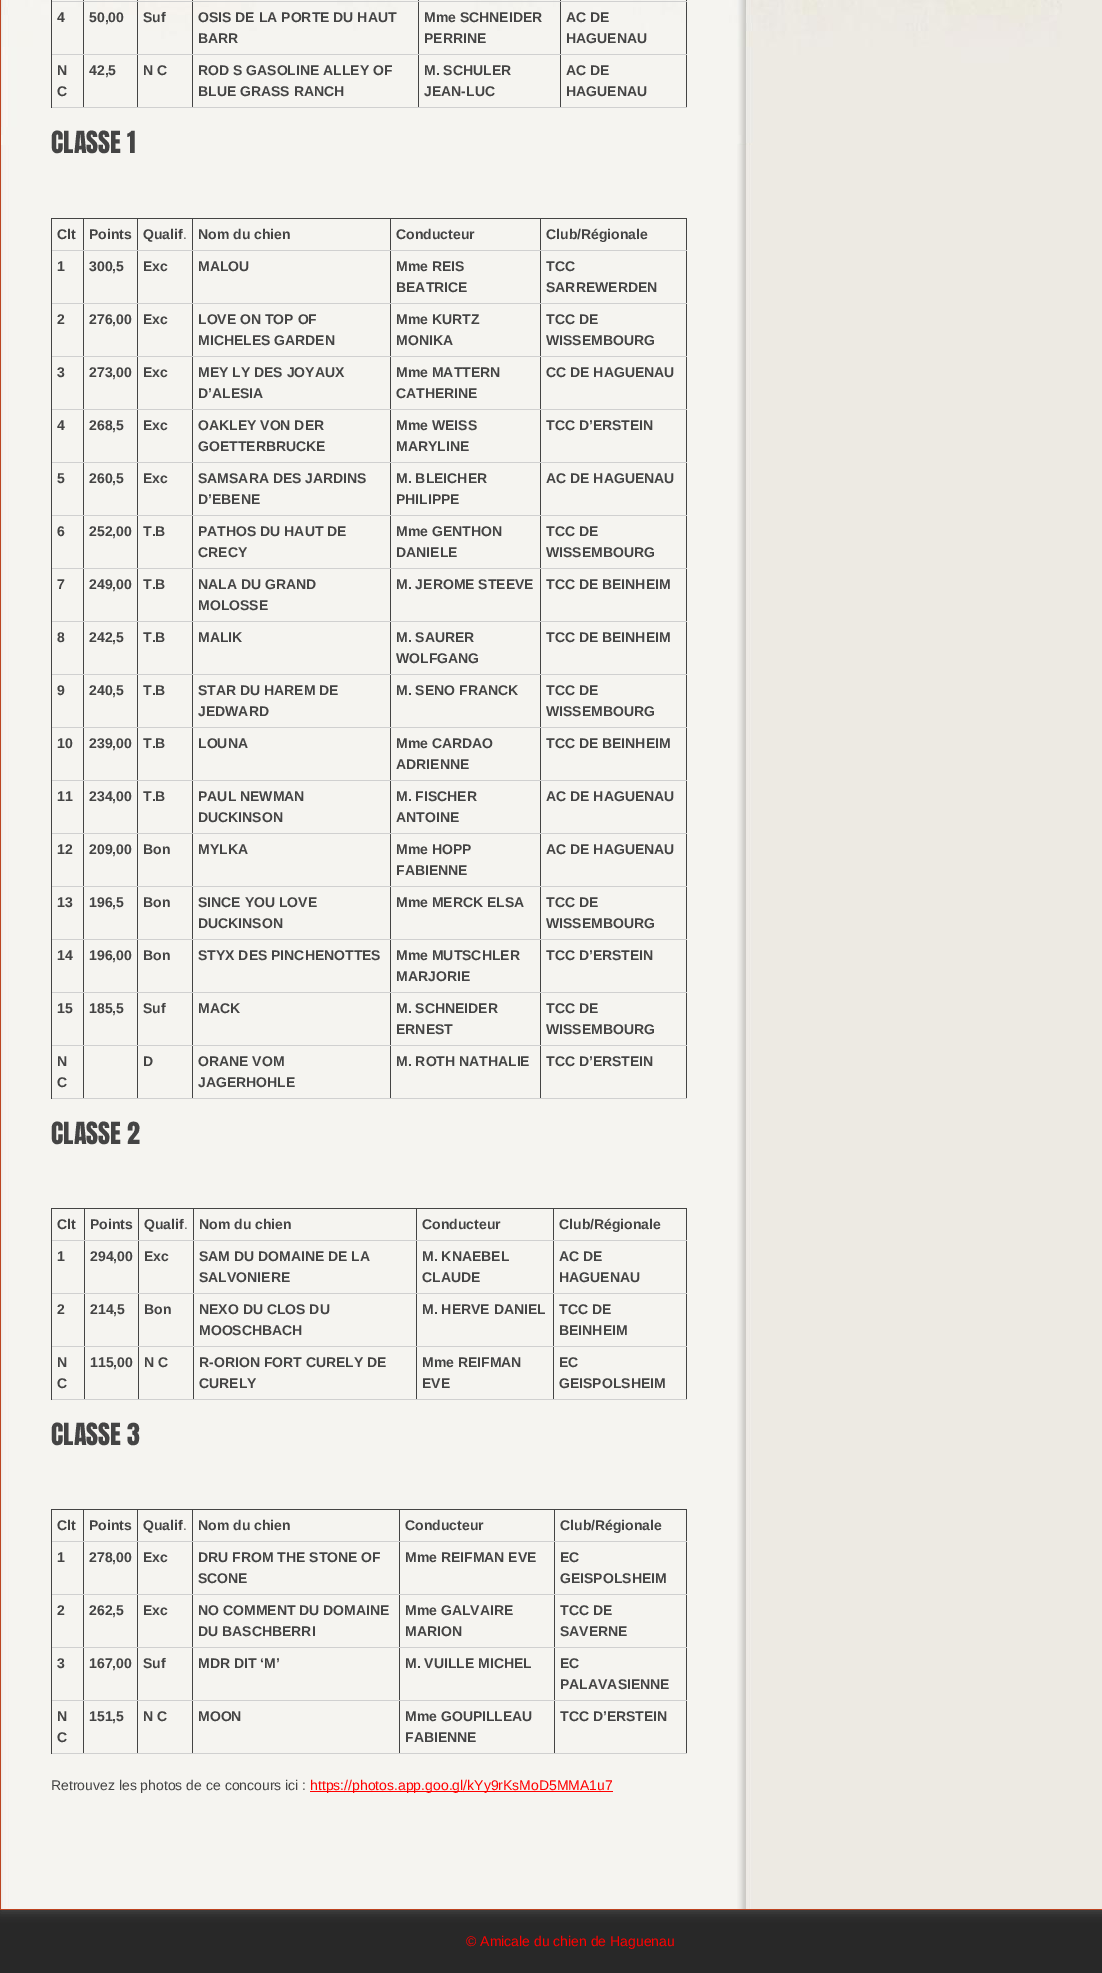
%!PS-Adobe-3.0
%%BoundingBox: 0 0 1102 1973
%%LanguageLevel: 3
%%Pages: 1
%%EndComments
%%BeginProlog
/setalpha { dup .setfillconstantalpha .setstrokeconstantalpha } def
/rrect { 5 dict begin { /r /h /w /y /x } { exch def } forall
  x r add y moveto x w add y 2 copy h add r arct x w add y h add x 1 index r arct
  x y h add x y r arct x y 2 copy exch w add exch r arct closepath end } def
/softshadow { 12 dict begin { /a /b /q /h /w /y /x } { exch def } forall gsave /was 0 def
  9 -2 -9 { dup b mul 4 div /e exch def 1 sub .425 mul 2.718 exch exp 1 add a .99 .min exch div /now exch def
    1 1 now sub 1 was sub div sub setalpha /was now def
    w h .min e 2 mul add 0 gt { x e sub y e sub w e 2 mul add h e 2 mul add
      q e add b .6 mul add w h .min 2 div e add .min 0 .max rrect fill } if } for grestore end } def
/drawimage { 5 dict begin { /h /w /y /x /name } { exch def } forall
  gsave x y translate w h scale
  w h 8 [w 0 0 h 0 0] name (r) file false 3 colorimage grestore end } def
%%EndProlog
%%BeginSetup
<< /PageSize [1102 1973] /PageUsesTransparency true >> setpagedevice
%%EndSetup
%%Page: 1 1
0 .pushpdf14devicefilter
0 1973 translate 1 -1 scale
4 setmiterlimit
0.157 setgray
0 0 1102 1973 rectfill
(images/1.raw) 1 0 1101 1909 drawimage
gsave
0 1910 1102 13 rectclip
0.267 setgray
0 -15 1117 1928 0 5 1 softshadow
grestore
(images/2.raw) 1 0 1061 145 drawimage
0.737 0.263 0.125 setrgbcolor
0 1909 1102 1 rectfill
0 0 1 1910 rectfill
0.267 setgray
686 0 1 108 rectfill
0.816 setgray
560 107 127 1 rectfill
0.267 setgray
560 54 1 54 rectfill
0.816 setgray
560 54 127 1 rectfill
0.267 setgray
560 1 1 54 rectfill
0.816 setgray
560 1 127 1 rectfill
0.267 setgray
560 0 1 2 rectfill
0.816 setgray
418 107 143 1 rectfill
0.267 setgray
418 54 1 54 rectfill
0.816 setgray
418 54 143 1 rectfill
0.267 setgray
418 1 1 54 rectfill
0.816 setgray
418 1 143 1 rectfill
0.267 setgray
418 0 1 2 rectfill
0.816 setgray
192 107 227 1 rectfill
0.267 setgray
192 54 1 54 rectfill
0.816 setgray
192 54 227 1 rectfill
0.267 setgray
192 1 1 54 rectfill
0.816 setgray
192 1 227 1 rectfill
0.267 setgray
192 0 1 2 rectfill
0.816 setgray
137 107 56 1 rectfill
0.267 setgray
137 54 1 54 rectfill
0.816 setgray
137 54 56 1 rectfill
0.267 setgray
137 1 1 54 rectfill
0.816 setgray
137 1 56 1 rectfill
0.267 setgray
137 0 1 2 rectfill
0.816 setgray
83 107 55 1 rectfill
0.267 setgray
83 54 1 54 rectfill
0.816 setgray
83 54 55 1 rectfill
0.267 setgray
83 1 1 54 rectfill
0.816 setgray
83 1 55 1 rectfill
0.267 setgray
83 0 1 2 rectfill
0.816 setgray
51 107 33 1 rectfill
0.267 setgray
51 54 1 54 rectfill
0.816 setgray
51 54 33 1 rectfill
0.267 setgray
51 1 1 54 rectfill
0.816 setgray
51 1 33 1 rectfill
0.267 setgray
51 0 1 2 rectfill
540 218 147 1 rectfill
686 250 1 849 rectfill
686 218 1 33 rectfill
0.816 setgray
540 1098 147 1 rectfill
0.267 setgray
540 1045 1 54 rectfill
0.816 setgray
540 1045 147 1 rectfill
0.267 setgray
540 992 1 54 rectfill
0.816 setgray
540 992 147 1 rectfill
0.267 setgray
540 939 1 54 rectfill
0.816 setgray
540 939 147 1 rectfill
0.267 setgray
540 886 1 54 rectfill
0.816 setgray
540 886 147 1 rectfill
0.267 setgray
540 833 1 54 rectfill
0.816 setgray
540 833 147 1 rectfill
0.267 setgray
540 780 1 54 rectfill
0.816 setgray
540 780 147 1 rectfill
0.267 setgray
540 727 1 54 rectfill
0.816 setgray
540 727 147 1 rectfill
0.267 setgray
540 674 1 54 rectfill
0.816 setgray
540 674 147 1 rectfill
0.267 setgray
540 621 1 54 rectfill
0.816 setgray
540 621 147 1 rectfill
0.267 setgray
540 568 1 54 rectfill
0.816 setgray
540 568 147 1 rectfill
0.267 setgray
540 515 1 54 rectfill
0.816 setgray
540 515 147 1 rectfill
0.267 setgray
540 462 1 54 rectfill
0.816 setgray
540 462 147 1 rectfill
0.267 setgray
540 409 1 54 rectfill
0.816 setgray
540 409 147 1 rectfill
0.267 setgray
540 356 1 54 rectfill
0.816 setgray
540 356 147 1 rectfill
0.267 setgray
540 303 1 54 rectfill
0.816 setgray
540 303 147 1 rectfill
0.267 setgray
540 250 1 54 rectfill
0.816 setgray
540 250 147 1 rectfill
0.267 setgray
540 218 1 33 rectfill
390 218 151 1 rectfill
0.816 setgray
390 1098 151 1 rectfill
0.267 setgray
390 1045 1 54 rectfill
0.816 setgray
390 1045 151 1 rectfill
0.267 setgray
390 992 1 54 rectfill
0.816 setgray
390 992 151 1 rectfill
0.267 setgray
390 939 1 54 rectfill
0.816 setgray
390 939 151 1 rectfill
0.267 setgray
390 886 1 54 rectfill
0.816 setgray
390 886 151 1 rectfill
0.267 setgray
390 833 1 54 rectfill
0.816 setgray
390 833 151 1 rectfill
0.267 setgray
390 780 1 54 rectfill
0.816 setgray
390 780 151 1 rectfill
0.267 setgray
390 727 1 54 rectfill
0.816 setgray
390 727 151 1 rectfill
0.267 setgray
390 674 1 54 rectfill
0.816 setgray
390 674 151 1 rectfill
0.267 setgray
390 621 1 54 rectfill
0.816 setgray
390 621 151 1 rectfill
0.267 setgray
390 568 1 54 rectfill
0.816 setgray
390 568 151 1 rectfill
0.267 setgray
390 515 1 54 rectfill
0.816 setgray
390 515 151 1 rectfill
0.267 setgray
390 462 1 54 rectfill
0.816 setgray
390 462 151 1 rectfill
0.267 setgray
390 409 1 54 rectfill
0.816 setgray
390 409 151 1 rectfill
0.267 setgray
390 356 1 54 rectfill
0.816 setgray
390 356 151 1 rectfill
0.267 setgray
390 303 1 54 rectfill
0.816 setgray
390 303 151 1 rectfill
0.267 setgray
390 250 1 54 rectfill
0.816 setgray
390 250 151 1 rectfill
0.267 setgray
390 218 1 33 rectfill
192 218 199 1 rectfill
0.816 setgray
192 1098 199 1 rectfill
0.267 setgray
192 1045 1 54 rectfill
0.816 setgray
192 1045 199 1 rectfill
0.267 setgray
192 992 1 54 rectfill
0.816 setgray
192 992 199 1 rectfill
0.267 setgray
192 939 1 54 rectfill
0.816 setgray
192 939 199 1 rectfill
0.267 setgray
192 886 1 54 rectfill
0.816 setgray
192 886 199 1 rectfill
0.267 setgray
192 833 1 54 rectfill
0.816 setgray
192 833 199 1 rectfill
0.267 setgray
192 780 1 54 rectfill
0.816 setgray
192 780 199 1 rectfill
0.267 setgray
192 727 1 54 rectfill
0.816 setgray
192 727 199 1 rectfill
0.267 setgray
192 674 1 54 rectfill
0.816 setgray
192 674 199 1 rectfill
0.267 setgray
192 621 1 54 rectfill
0.816 setgray
192 621 199 1 rectfill
0.267 setgray
192 568 1 54 rectfill
0.816 setgray
192 568 199 1 rectfill
0.267 setgray
192 515 1 54 rectfill
0.816 setgray
192 515 199 1 rectfill
0.267 setgray
192 462 1 54 rectfill
0.816 setgray
192 462 199 1 rectfill
0.267 setgray
192 409 1 54 rectfill
0.816 setgray
192 409 199 1 rectfill
0.267 setgray
192 356 1 54 rectfill
0.816 setgray
192 356 199 1 rectfill
0.267 setgray
192 303 1 54 rectfill
0.816 setgray
192 303 199 1 rectfill
0.267 setgray
192 250 1 54 rectfill
0.816 setgray
192 250 199 1 rectfill
0.267 setgray
192 218 1 33 rectfill
137 218 56 1 rectfill
0.816 setgray
137 1098 56 1 rectfill
0.267 setgray
137 1045 1 54 rectfill
0.816 setgray
137 1045 56 1 rectfill
0.267 setgray
137 992 1 54 rectfill
0.816 setgray
137 992 56 1 rectfill
0.267 setgray
137 939 1 54 rectfill
0.816 setgray
137 939 56 1 rectfill
0.267 setgray
137 886 1 54 rectfill
0.816 setgray
137 886 56 1 rectfill
0.267 setgray
137 833 1 54 rectfill
0.816 setgray
137 833 56 1 rectfill
0.267 setgray
137 780 1 54 rectfill
0.816 setgray
137 780 56 1 rectfill
0.267 setgray
137 727 1 54 rectfill
0.816 setgray
137 727 56 1 rectfill
0.267 setgray
137 674 1 54 rectfill
0.816 setgray
137 674 56 1 rectfill
0.267 setgray
137 621 1 54 rectfill
0.816 setgray
137 621 56 1 rectfill
0.267 setgray
137 568 1 54 rectfill
0.816 setgray
137 568 56 1 rectfill
0.267 setgray
137 515 1 54 rectfill
0.816 setgray
137 515 56 1 rectfill
0.267 setgray
137 462 1 54 rectfill
0.816 setgray
137 462 56 1 rectfill
0.267 setgray
137 409 1 54 rectfill
0.816 setgray
137 409 56 1 rectfill
0.267 setgray
137 356 1 54 rectfill
0.816 setgray
137 356 56 1 rectfill
0.267 setgray
137 303 1 54 rectfill
0.816 setgray
137 303 56 1 rectfill
0.267 setgray
137 250 1 54 rectfill
0.816 setgray
137 250 56 1 rectfill
0.267 setgray
137 218 1 33 rectfill
83 218 55 1 rectfill
0.816 setgray
83 1098 55 1 rectfill
0.267 setgray
83 1045 1 54 rectfill
0.816 setgray
83 1045 55 1 rectfill
0.267 setgray
83 992 1 54 rectfill
0.816 setgray
83 992 55 1 rectfill
0.267 setgray
83 939 1 54 rectfill
0.816 setgray
83 939 55 1 rectfill
0.267 setgray
83 886 1 54 rectfill
0.816 setgray
83 886 55 1 rectfill
0.267 setgray
83 833 1 54 rectfill
0.816 setgray
83 833 55 1 rectfill
0.267 setgray
83 780 1 54 rectfill
0.816 setgray
83 780 55 1 rectfill
0.267 setgray
83 727 1 54 rectfill
0.816 setgray
83 727 55 1 rectfill
0.267 setgray
83 674 1 54 rectfill
0.816 setgray
83 674 55 1 rectfill
0.267 setgray
83 621 1 54 rectfill
0.816 setgray
83 621 55 1 rectfill
0.267 setgray
83 568 1 54 rectfill
0.816 setgray
83 568 55 1 rectfill
0.267 setgray
83 515 1 54 rectfill
0.816 setgray
83 515 55 1 rectfill
0.267 setgray
83 462 1 54 rectfill
0.816 setgray
83 462 55 1 rectfill
0.267 setgray
83 409 1 54 rectfill
0.816 setgray
83 409 55 1 rectfill
0.267 setgray
83 356 1 54 rectfill
0.816 setgray
83 356 55 1 rectfill
0.267 setgray
83 303 1 54 rectfill
0.816 setgray
83 303 55 1 rectfill
0.267 setgray
83 250 1 54 rectfill
0.816 setgray
83 250 55 1 rectfill
0.267 setgray
83 218 1 33 rectfill
51 218 33 1 rectfill
0.816 setgray
51 1098 33 1 rectfill
0.267 setgray
51 1045 1 54 rectfill
0.816 setgray
51 1045 33 1 rectfill
0.267 setgray
51 992 1 54 rectfill
0.816 setgray
51 992 33 1 rectfill
0.267 setgray
51 939 1 54 rectfill
0.816 setgray
51 939 33 1 rectfill
0.267 setgray
51 886 1 54 rectfill
0.816 setgray
51 886 33 1 rectfill
0.267 setgray
51 833 1 54 rectfill
0.816 setgray
51 833 33 1 rectfill
0.267 setgray
51 780 1 54 rectfill
0.816 setgray
51 780 33 1 rectfill
0.267 setgray
51 727 1 54 rectfill
0.816 setgray
51 727 33 1 rectfill
0.267 setgray
51 674 1 54 rectfill
0.816 setgray
51 674 33 1 rectfill
0.267 setgray
51 621 1 54 rectfill
0.816 setgray
51 621 33 1 rectfill
0.267 setgray
51 568 1 54 rectfill
0.816 setgray
51 568 33 1 rectfill
0.267 setgray
51 515 1 54 rectfill
0.816 setgray
51 515 33 1 rectfill
0.267 setgray
51 462 1 54 rectfill
0.816 setgray
51 462 33 1 rectfill
0.267 setgray
51 409 1 54 rectfill
0.816 setgray
51 409 33 1 rectfill
0.267 setgray
51 356 1 54 rectfill
0.816 setgray
51 356 33 1 rectfill
0.267 setgray
51 303 1 54 rectfill
0.816 setgray
51 303 33 1 rectfill
0.267 setgray
51 250 1 54 rectfill
0.816 setgray
51 250 33 1 rectfill
0.267 setgray
51 218 1 33 rectfill
553 1208 134 1 rectfill
686 1240 1 160 rectfill
686 1208 1 33 rectfill
0.816 setgray
553 1399 134 1 rectfill
0.267 setgray
553 1346 1 54 rectfill
0.816 setgray
553 1346 134 1 rectfill
0.267 setgray
553 1293 1 54 rectfill
0.816 setgray
553 1293 134 1 rectfill
0.267 setgray
553 1240 1 54 rectfill
0.816 setgray
553 1240 134 1 rectfill
0.267 setgray
553 1208 1 33 rectfill
416 1208 138 1 rectfill
0.816 setgray
416 1399 138 1 rectfill
0.267 setgray
416 1346 1 54 rectfill
0.816 setgray
416 1346 138 1 rectfill
0.267 setgray
416 1293 1 54 rectfill
0.816 setgray
416 1293 138 1 rectfill
0.267 setgray
416 1240 1 54 rectfill
0.816 setgray
416 1240 138 1 rectfill
0.267 setgray
416 1208 1 33 rectfill
193 1208 224 1 rectfill
0.816 setgray
193 1399 224 1 rectfill
0.267 setgray
193 1346 1 54 rectfill
0.816 setgray
193 1346 224 1 rectfill
0.267 setgray
193 1293 1 54 rectfill
0.816 setgray
193 1293 224 1 rectfill
0.267 setgray
193 1240 1 54 rectfill
0.816 setgray
193 1240 224 1 rectfill
0.267 setgray
193 1208 1 33 rectfill
138 1208 56 1 rectfill
0.816 setgray
138 1399 56 1 rectfill
0.267 setgray
138 1346 1 54 rectfill
0.816 setgray
138 1346 56 1 rectfill
0.267 setgray
138 1293 1 54 rectfill
0.816 setgray
138 1293 56 1 rectfill
0.267 setgray
138 1240 1 54 rectfill
0.816 setgray
138 1240 56 1 rectfill
0.267 setgray
138 1208 1 33 rectfill
84 1208 55 1 rectfill
0.816 setgray
84 1399 55 1 rectfill
0.267 setgray
84 1346 1 54 rectfill
0.816 setgray
84 1346 55 1 rectfill
0.267 setgray
84 1293 1 54 rectfill
0.816 setgray
84 1293 55 1 rectfill
0.267 setgray
84 1240 1 54 rectfill
0.816 setgray
84 1240 55 1 rectfill
0.267 setgray
84 1208 1 33 rectfill
51 1208 34 1 rectfill
0.816 setgray
51 1399 34 1 rectfill
0.267 setgray
51 1346 1 54 rectfill
0.816 setgray
51 1346 34 1 rectfill
0.267 setgray
51 1293 1 54 rectfill
0.816 setgray
51 1293 34 1 rectfill
0.267 setgray
51 1240 1 54 rectfill
0.816 setgray
51 1240 34 1 rectfill
0.267 setgray
51 1208 1 33 rectfill
554 1509 133 1 rectfill
686 1541 1 213 rectfill
686 1509 1 33 rectfill
0.816 setgray
554 1753 133 1 rectfill
0.267 setgray
554 1700 1 54 rectfill
0.816 setgray
554 1700 133 1 rectfill
0.267 setgray
554 1647 1 54 rectfill
0.816 setgray
554 1647 133 1 rectfill
0.267 setgray
554 1594 1 54 rectfill
0.816 setgray
554 1594 133 1 rectfill
0.267 setgray
554 1541 1 54 rectfill
0.816 setgray
554 1541 133 1 rectfill
0.267 setgray
554 1509 1 33 rectfill
399 1509 156 1 rectfill
0.816 setgray
399 1753 156 1 rectfill
0.267 setgray
399 1700 1 54 rectfill
0.816 setgray
399 1700 156 1 rectfill
0.267 setgray
399 1647 1 54 rectfill
0.816 setgray
399 1647 156 1 rectfill
0.267 setgray
399 1594 1 54 rectfill
0.816 setgray
399 1594 156 1 rectfill
0.267 setgray
399 1541 1 54 rectfill
0.816 setgray
399 1541 156 1 rectfill
0.267 setgray
399 1509 1 33 rectfill
192 1509 208 1 rectfill
0.816 setgray
192 1753 208 1 rectfill
0.267 setgray
192 1700 1 54 rectfill
0.816 setgray
192 1700 208 1 rectfill
0.267 setgray
192 1647 1 54 rectfill
0.816 setgray
192 1647 208 1 rectfill
0.267 setgray
192 1594 1 54 rectfill
0.816 setgray
192 1594 208 1 rectfill
0.267 setgray
192 1541 1 54 rectfill
0.816 setgray
192 1541 208 1 rectfill
0.267 setgray
192 1509 1 33 rectfill
137 1509 56 1 rectfill
0.816 setgray
137 1753 56 1 rectfill
0.267 setgray
137 1700 1 54 rectfill
0.816 setgray
137 1700 56 1 rectfill
0.267 setgray
137 1647 1 54 rectfill
0.816 setgray
137 1647 56 1 rectfill
0.267 setgray
137 1594 1 54 rectfill
0.816 setgray
137 1594 56 1 rectfill
0.267 setgray
137 1541 1 54 rectfill
0.816 setgray
137 1541 56 1 rectfill
0.267 setgray
137 1509 1 33 rectfill
83 1509 55 1 rectfill
0.816 setgray
83 1753 55 1 rectfill
0.267 setgray
83 1700 1 54 rectfill
0.816 setgray
83 1700 55 1 rectfill
0.267 setgray
83 1647 1 54 rectfill
0.816 setgray
83 1647 55 1 rectfill
0.267 setgray
83 1594 1 54 rectfill
0.816 setgray
83 1594 55 1 rectfill
0.267 setgray
83 1541 1 54 rectfill
0.816 setgray
83 1541 55 1 rectfill
0.267 setgray
83 1509 1 33 rectfill
51 1509 33 1 rectfill
0.816 setgray
51 1753 33 1 rectfill
0.267 setgray
51 1700 1 54 rectfill
0.816 setgray
51 1700 33 1 rectfill
0.267 setgray
51 1647 1 54 rectfill
0.816 setgray
51 1647 33 1 rectfill
0.267 setgray
51 1594 1 54 rectfill
0.816 setgray
51 1594 33 1 rectfill
0.267 setgray
51 1541 1 54 rectfill
0.816 setgray
51 1541 33 1 rectfill
0.267 setgray
51 1509 1 33 rectfill
1 0 0 setrgbcolor
310 1791 303 1 rectfill
/LiberationSans-Bold [14 0 0 -14 0 0] selectfont
0.267 setgray
57 22 moveto (4) show
89 22 moveto (50,00) show
143 22 moveto (Suf) show
198 22 moveto (OSIS DE LA PORTE DU HAUT) show
198 43 moveto (BARR) show
424 22 moveto (Mme SCHNEIDER) show
424 43 moveto (PERRINE) show
566 22 moveto (AC DE) show
566 43 moveto (HAGUENAU) show
57 75 moveto (N) show
57 96 moveto (C) show
89 75 moveto (42,5) show
143 75 moveto (N C) show
198 75 moveto (ROD S GASOLINE ALLEY OF) show
198 96 moveto (BLUE GRASS RANCH) show
424 75 moveto (M. SCHULER) show
424 96 moveto (JEAN-LUC) show
566 75 moveto (AC DE) show
566 96 moveto (HAGUENAU) show
/Anton-Regular [26 0 0 -26 0 0] selectfont
51 153 moveto (CLASSE 1) show
/LiberationSans-Bold [14 0 0 -14 0 0] selectfont
57 239 moveto (Clt) show
89 239 moveto (Points) show
143 239 moveto (Qualif) show
/LiberationSans-Regular [14 0 0 -14 0 0] selectfont
183 239 moveto (.) show
/LiberationSans-Bold [14 0 0 -14 0 0] selectfont
198 239 moveto (Nom du chien) show
396 239 moveto (Conducteur) show
546 239 moveto (Club/Régionale) show
57 271 moveto (1) show
89 271 moveto (300,5) show
143 271 moveto (Exc) show
198 271 moveto (MALOU) show
396 271 moveto (Mme REIS) show
396 292 moveto (BEATRICE) show
546 271 moveto (TCC) show
546 292 moveto (SARREWERDEN) show
57 324 moveto (2) show
89 324 moveto (276,00) show
143 324 moveto (Exc) show
198 324 moveto (LOVE ON TOP OF) show
198 345 moveto (MICHELES GARDEN) show
396 324 moveto (Mme KURTZ) show
396 345 moveto (MONIKA) show
546 324 moveto (TCC DE) show
546 345 moveto (WISSEMBOURG) show
57 377 moveto (3) show
89 377 moveto (273,00) show
143 377 moveto (Exc) show
198 377 moveto (MEY LY DES JOYAUX) show
198 398 moveto (D’ALESIA) show
396 377 moveto (Mme MATTERN) show
396 398 moveto (CATHERINE) show
546 377 moveto (CC DE HAGUENAU) show
57 430 moveto (4) show
89 430 moveto (268,5) show
143 430 moveto (Exc) show
198 430 moveto (OAKLEY VON DER) show
198 451 moveto (GOETTERBRUCKE) show
396 430 moveto (Mme WEISS) show
396 451 moveto (MARYLINE) show
546 430 moveto (TCC D’ERSTEIN) show
57 483 moveto (5) show
89 483 moveto (260,5) show
143 483 moveto (Exc) show
198 483 moveto (SAMSARA DES JARDINS) show
198 504 moveto (D’EBENE) show
396 483 moveto (M. BLEICHER) show
396 504 moveto (PHILIPPE) show
546 483 moveto (AC DE HAGUENAU) show
57 536 moveto (6) show
89 536 moveto (252,00) show
143 536 moveto (T.B) show
198 536 moveto (PATHOS DU HAUT DE) show
198 557 moveto (CRECY) show
396 536 moveto (Mme GENTHON) show
396 557 moveto (DANIELE) show
546 536 moveto (TCC DE) show
546 557 moveto (WISSEMBOURG) show
57 589 moveto (7) show
89 589 moveto (249,00) show
143 589 moveto (T.B) show
198 589 moveto (NALA DU GRAND) show
198 610 moveto (MOLOSSE) show
396 589 moveto (M. JEROME STEEVE) show
546 589 moveto (TCC DE BEINHEIM) show
57 642 moveto (8) show
89 642 moveto (242,5) show
143 642 moveto (T.B) show
198 642 moveto (MALIK) show
396 642 moveto (M. SAURER) show
396 663 moveto (WOLFGANG) show
546 642 moveto (TCC DE BEINHEIM) show
57 695 moveto (9) show
89 695 moveto (240,5) show
143 695 moveto (T.B) show
198 695 moveto (STAR DU HAREM DE) show
198 716 moveto (JEDWARD) show
396 695 moveto (M. SENO FRANCK) show
546 695 moveto (TCC DE) show
546 716 moveto (WISSEMBOURG) show
57 748 moveto (10) show
89 748 moveto (239,00) show
143 748 moveto (T.B) show
198 748 moveto (LOUNA) show
396 748 moveto (Mme CARDAO) show
396 769 moveto (ADRIENNE) show
546 748 moveto (TCC DE BEINHEIM) show
57 801 moveto (11) show
89 801 moveto (234,00) show
143 801 moveto (T.B) show
198 801 moveto (PAUL NEWMAN) show
198 822 moveto (DUCKINSON) show
396 801 moveto (M. FISCHER) show
396 822 moveto (ANTOINE) show
546 801 moveto (AC DE HAGUENAU) show
57 854 moveto (12) show
89 854 moveto (209,00) show
143 854 moveto (Bon) show
198 854 moveto (MYLKA) show
396 854 moveto (Mme HOPP) show
396 875 moveto (FABIENNE) show
546 854 moveto (AC DE HAGUENAU) show
57 907 moveto (13) show
89 907 moveto (196,5) show
143 907 moveto (Bon) show
198 907 moveto (SINCE YOU LOVE) show
198 928 moveto (DUCKINSON) show
396 907 moveto (Mme MERCK ELSA) show
546 907 moveto (TCC DE) show
546 928 moveto (WISSEMBOURG) show
57 960 moveto (14) show
89 960 moveto (196,00) show
143 960 moveto (Bon) show
198 960 moveto (STYX DES PINCHENOTTES) show
396 960 moveto (Mme MUTSCHLER) show
396 981 moveto (MARJORIE) show
546 960 moveto (TCC D’ERSTEIN) show
57 1013 moveto (15) show
89 1013 moveto (185,5) show
143 1013 moveto (Suf) show
198 1013 moveto (MACK) show
396 1013 moveto (M. SCHNEIDER) show
396 1034 moveto (ERNEST) show
546 1013 moveto (TCC DE) show
546 1034 moveto (WISSEMBOURG) show
57 1066 moveto (N) show
57 1087 moveto (C) show
143 1066 moveto (D) show
198 1066 moveto (ORANE VOM) show
198 1087 moveto (JAGERHOHLE) show
396 1066 moveto (M. ROTH NATHALIE) show
546 1066 moveto (TCC D’ERSTEIN) show
/Anton-Regular [26 0 0 -26 0 0] selectfont
51 1144 moveto (CLASSE 2) show
/LiberationSans-Bold [14 0 0 -14 0 0] selectfont
57 1229 moveto (Clt) show
90 1229 moveto (Points) show
144 1229 moveto (Qualif) show
/LiberationSans-Regular [14 0 0 -14 0 0] selectfont
184 1229 moveto (.) show
/LiberationSans-Bold [14 0 0 -14 0 0] selectfont
199 1229 moveto (Nom du chien) show
422 1229 moveto (Conducteur) show
559 1229 moveto (Club/Régionale) show
57 1261 moveto (1) show
90 1261 moveto (294,00) show
144 1261 moveto (Exc) show
199 1261 moveto (SAM DU DOMAINE DE LA) show
199 1282 moveto (SALVONIERE) show
422 1261 moveto (M. KNAEBEL) show
422 1282 moveto (CLAUDE) show
559 1261 moveto (AC DE) show
559 1282 moveto (HAGUENAU) show
57 1314 moveto (2) show
90 1314 moveto (214,5) show
144 1314 moveto (Bon) show
199 1314 moveto (NEXO DU CLOS DU) show
199 1335 moveto (MOOSCHBACH) show
422 1314 moveto (M. HERVE DANIEL) show
559 1314 moveto (TCC DE) show
559 1335 moveto (BEINHEIM) show
57 1367 moveto (N) show
57 1388 moveto (C) show
90 1367 moveto (115,00) show
144 1367 moveto (N C) show
199 1367 moveto (R-ORION FORT CURELY DE) show
199 1388 moveto (CURELY) show
422 1367 moveto (Mme REIFMAN) show
422 1388 moveto (EVE) show
559 1367 moveto (EC) show
559 1388 moveto (GEISPOLSHEIM) show
/Anton-Regular [26 0 0 -26 0 0] selectfont
51 1445 moveto (CLASSE 3) show
/LiberationSans-Bold [14 0 0 -14 0 0] selectfont
57 1530 moveto (Clt) show
89 1530 moveto (Points) show
143 1530 moveto (Qualif) show
/LiberationSans-Regular [14 0 0 -14 0 0] selectfont
183 1530 moveto (.) show
/LiberationSans-Bold [14 0 0 -14 0 0] selectfont
198 1530 moveto (Nom du chien) show
405 1530 moveto (Conducteur) show
560 1530 moveto (Club/Régionale) show
57 1562 moveto (1) show
89 1562 moveto (278,00) show
143 1562 moveto (Exc) show
198 1562 moveto (DRU FROM THE STONE OF) show
198 1583 moveto (SCONE) show
405 1562 moveto (Mme REIFMAN EVE) show
560 1562 moveto (EC) show
560 1583 moveto (GEISPOLSHEIM) show
57 1615 moveto (2) show
89 1615 moveto (262,5) show
143 1615 moveto (Exc) show
198 1615 moveto (NO COMMENT DU DOMAINE) show
198 1636 moveto (DU BASCHBERRI) show
405 1615 moveto (Mme GALVAIRE) show
405 1636 moveto (MARION) show
560 1615 moveto (TCC DE) show
560 1636 moveto (SAVERNE) show
57 1668 moveto (3) show
89 1668 moveto (167,00) show
143 1668 moveto (Suf) show
198 1668 moveto (MDR DIT ‘M’) show
405 1668 moveto (M. VUILLE MICHEL) show
560 1668 moveto (EC) show
560 1689 moveto (PALAVASIENNE) show
57 1721 moveto (N) show
57 1742 moveto (C) show
89 1721 moveto (151,5) show
143 1721 moveto (N C) show
198 1721 moveto (MOON) show
405 1721 moveto (Mme GOUPILLEAU) show
405 1742 moveto (FABIENNE) show
560 1721 moveto (TCC D’ERSTEIN) show
/LiberationSans-Regular [14 0 0 -14 0 0] selectfont
51 1790 moveto (Retrouvez les photos de ce concours ici :) show
1 0 0 setrgbcolor
310 1790 moveto (https://photos.app.goo.gl/kYy9rKsMoD5MMA1u7) show
466 1946 moveto (© Amicale du chien de Haguenau) show
.poppdf14devicefilter showpage
%%EOF
